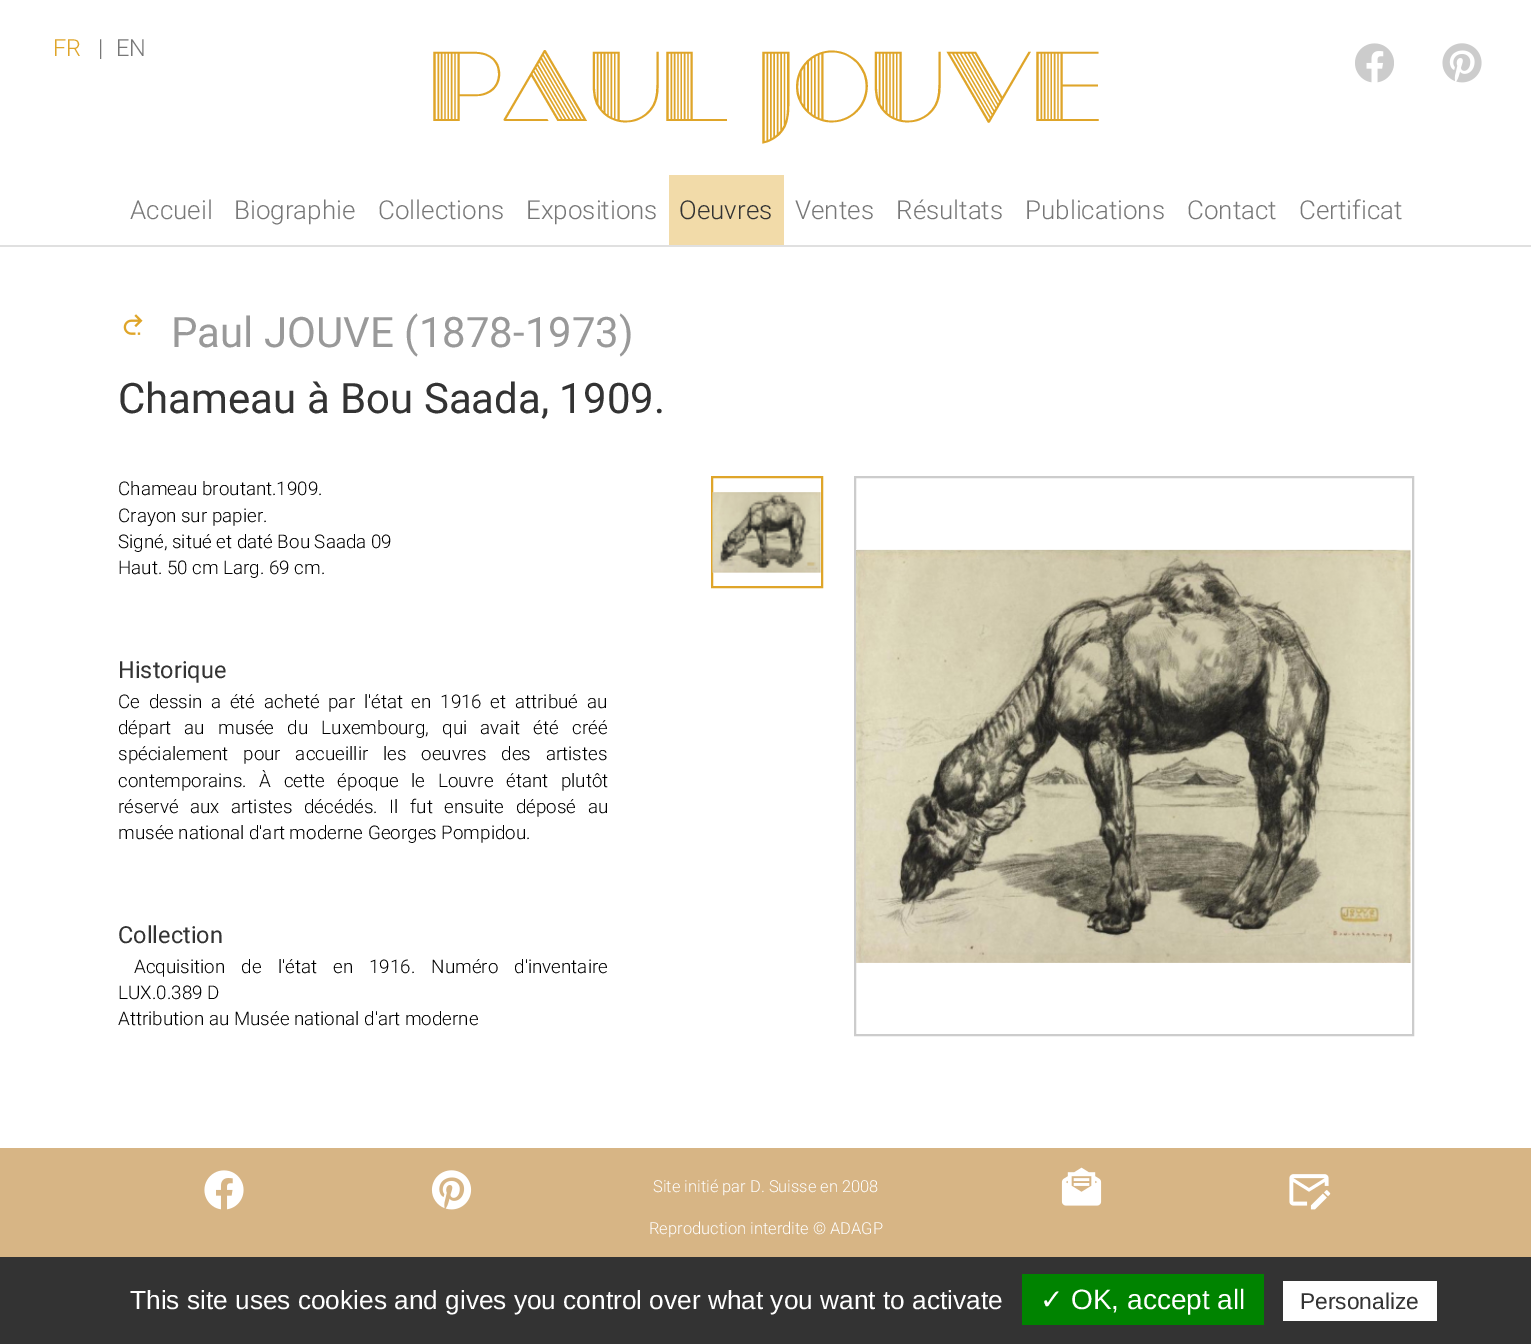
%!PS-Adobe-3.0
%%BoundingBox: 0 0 1531 1344
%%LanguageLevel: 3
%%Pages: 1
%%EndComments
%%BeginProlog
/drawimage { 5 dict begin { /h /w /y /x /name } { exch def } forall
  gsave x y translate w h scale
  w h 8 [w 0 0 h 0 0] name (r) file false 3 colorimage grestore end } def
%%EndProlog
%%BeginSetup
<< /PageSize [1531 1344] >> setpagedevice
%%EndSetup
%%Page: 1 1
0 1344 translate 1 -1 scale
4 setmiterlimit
1 setgray
0 0 1531 1344 rectfill
0.878 setgray
0 245 1531 2 rectfill
(images/1.raw) 1355 43 39 40 drawimage
(images/2.raw) 1442 43 40 40 drawimage
0.949 0.859 0.663 setrgbcolor
669 175 115 70 rectfill
(images/3.raw) 123 314 20 21 drawimage
0.875 0.647 0.161 setrgbcolor
2 setlinewidth
712 477 110 110 rectstroke
(images/4.raw) 712 492 109 81 drawimage
0.8 setgray
855 477 558 558 rectstroke
(images/5.raw) 856 549 555 414 drawimage
0.843 0.71 0.522 setrgbcolor
0 1148 1531 109 rectfill
(images/6.raw) 204 1170 40 40 drawimage
(images/7.raw) 431 1170 41 40 drawimage
(images/8.raw) 1061 1167 41 39 drawimage
(images/9.raw) 1289 1174 42 36 drawimage
0.2 setgray
0 1257 1531 87 rectfill
0 0.514 0 setrgbcolor
1022 1274 242 51 rectfill
1 setgray
1283 1281 154 40 rectfill
/Roboto-Light [23.5 0 0 -23.5 0 0] selectfont
0.875 0.647 0.161 setrgbcolor
53 56 moveto (FR) show
0.467 setgray
98 56 moveto (|) show
116 56 moveto (EN) show
/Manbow-Regular [94 0 0 -94 0 0] selectfont
0.875 0.647 0.161 setrgbcolor
429 121 moveto (Paul JOUVE) show
/Roboto-Light [26 0 0 -26 0 0] selectfont
0.467 setgray
130 219 moveto (Accueil) show
234 219 moveto (Biographie) show
378 219 moveto (Collections) show
526 219 moveto (Expositions) show
0.2 setgray
679 219 moveto (Oeuvres) show
0.467 setgray
795 219 moveto (Ventes) show
896 219 moveto (Résultats) show
1025 219 moveto (Publications) show
1187 219 moveto (Contact) show
1299 219 moveto (Certificat) show
/Roboto-Regular [42 0 0 -42 0 0] selectfont
0.6 setgray
171 347 moveto (Paul JOUVE \(1878-1973\)) show
0.2 setgray
118 413 moveto (Chameau à Bou Saada, 1909.) show
/Roboto-Light [18.8 0 0 -18.8 0 0] selectfont
0 setgray
118 495 moveto (Chameau broutant.1909.) show
118 522 moveto (Crayon sur papier.) show
118 548 moveto (Signé, situé et daté Bou Saada 09) show
118 574 moveto (Haut. 50 cm Larg. 69 cm.) show
/Roboto-Regular [23.5 0 0 -23.5 0 0] selectfont
0.2 setgray
118 678 moveto (Historique) show
/Roboto-Light [18.8 0 0 -18.8 0 0] selectfont
0 setgray
118 708 moveto 4.1 0 32 (Ce dessin a été acheté par l'état en 1916 et attribué au) widthshow
118 734 moveto 8.75 0 32 (départ au musée du Luxembourg, qui avait été créé) widthshow
118 760 moveto 10.25 0 32 (spécialement pour accueillir les oeuvres des artistes) widthshow
118 787 moveto 8 0 32 (contemporains. À cette époque le Louvre étant plutôt) widthshow
118 813 moveto 7 0 32 (réservé aux artistes décédés. Il fut ensuite déposé au) widthshow
118 839 moveto (musée national d'art moderne Georges Pompidou.) show
/Roboto-Regular [23.5 0 0 -23.5 0 0] selectfont
0.2 setgray
118 943 moveto (Collection) show
/Roboto-Light [18.8 0 0 -18.8 0 0] selectfont
0 setgray
134 973 moveto 11.5 0 32 (Acquisition de l'état en 1916. Numéro d'inventaire) widthshow
118 999 moveto (LUX.0.389 D) show
118 1025 moveto (Attribution au Musée national d'art moderne) show
/Roboto-Light [16.5 0 0 -16.5 0 0] selectfont
1 setgray
653 1192 moveto (Site initié par D. Suisse en 2008) show
649 1234 moveto (Reproduction interdite © ADAGP) show
/LiberationSans-Regular [26.25 0 0 -26.25 0 0] selectfont
130 1309 moveto (This site uses cookies and gives you control over what you want to activate) show
/DejaVuSans-Regular [28 0 0 -28 0 0] selectfont
1040 1309 moveto (✓) show
/LiberationSans-Regular [28 0 0 -28 0 0] selectfont
1071 1309 moveto (OK, accept all) show
/LiberationSans-Regular [22.75 0 0 -22.75 0 0] selectfont
0.2 setgray
1300 1309 moveto (Personalize) show
showpage
%%EOF
